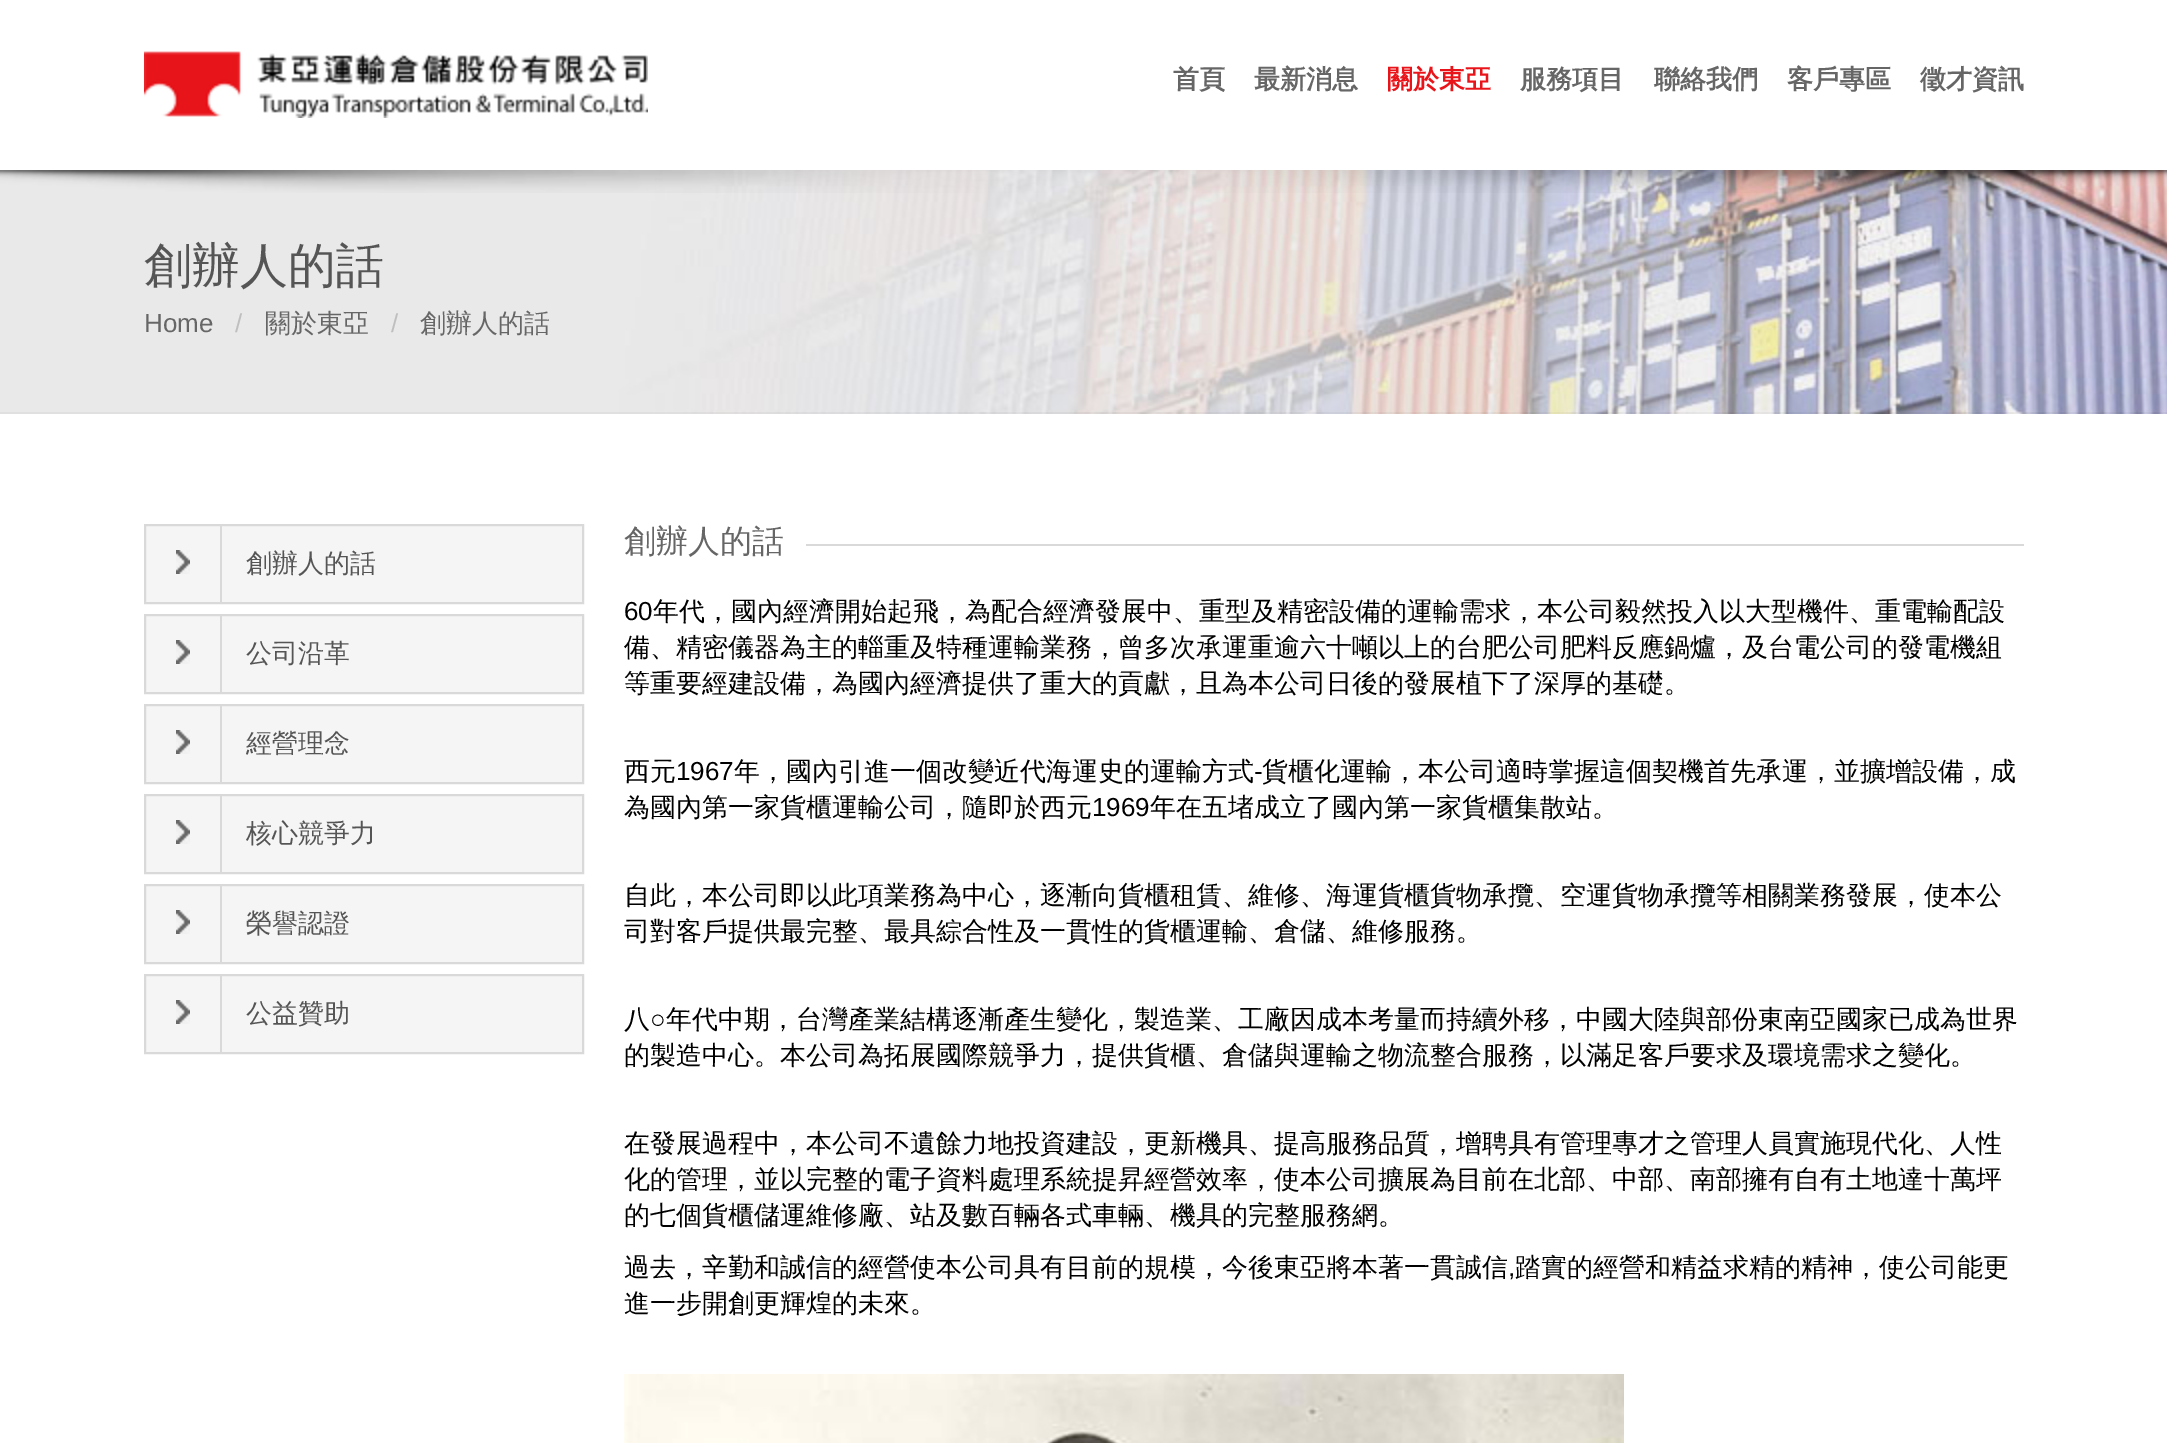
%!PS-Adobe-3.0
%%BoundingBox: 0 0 2167 1443
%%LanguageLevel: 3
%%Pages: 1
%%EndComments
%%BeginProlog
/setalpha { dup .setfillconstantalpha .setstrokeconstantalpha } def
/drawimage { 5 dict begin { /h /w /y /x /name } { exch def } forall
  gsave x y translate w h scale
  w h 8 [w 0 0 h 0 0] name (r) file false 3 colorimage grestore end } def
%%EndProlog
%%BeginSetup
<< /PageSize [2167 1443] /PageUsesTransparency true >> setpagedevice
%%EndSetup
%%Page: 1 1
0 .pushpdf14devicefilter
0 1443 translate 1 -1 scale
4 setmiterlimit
1 setgray
0 0 2167 1443 rectfill
(images/1.raw) 144 51 504 67 drawimage
(images/3.raw) 0 170 2167 244 drawimage
(images/2.raw) 0 170 2167 23 drawimage
0.04 setalpha
0 setgray
0 412 2167 2 rectfill
1 setalpha
0.961 setgray
newpath 145 525 moveto 583 525 lineto 583 603 lineto 145 603 lineto closepath gsave fill grestore
0.851 setgray
2 setlinewidth
stroke
220 524 2 80 rectfill
(images/4.raw) 176 550 14 24 drawimage
0.961 setgray
newpath 145 615 moveto 583 615 lineto 583 693 lineto 145 693 lineto closepath gsave fill grestore
0.851 setgray
stroke
220 614 2 80 rectfill
(images/4.raw) 176 640 14 24 drawimage
0.961 setgray
newpath 145 705 moveto 583 705 lineto 583 783 lineto 145 783 lineto closepath gsave fill grestore
0.851 setgray
stroke
220 704 2 80 rectfill
(images/4.raw) 176 730 14 24 drawimage
0.961 setgray
newpath 145 795 moveto 583 795 lineto 583 873 lineto 145 873 lineto closepath gsave fill grestore
0.851 setgray
stroke
220 794 2 80 rectfill
(images/4.raw) 176 820 14 24 drawimage
0.961 setgray
newpath 145 885 moveto 583 885 lineto 583 963 lineto 145 963 lineto closepath gsave fill grestore
0.851 setgray
stroke
220 884 2 80 rectfill
(images/4.raw) 176 910 14 24 drawimage
0.961 setgray
newpath 145 975 moveto 583 975 lineto 583 1053 lineto 145 1053 lineto closepath gsave fill grestore
0.851 setgray
stroke
220 974 2 80 rectfill
(images/4.raw) 176 1000 14 24 drawimage
806 544 1218 2 rectfill
(images/5.raw) 624 1374 1000 69 drawimage
/WenQuanYiZenHei-Bold [26 0 0 -26 0 0] selectfont
0.4 setgray
1173 88 moveto (首頁) show
1254 88 moveto (最新消息) show
0.91 0.078 0.102 setrgbcolor
1387 88 moveto (關於東亞) show
0.4 setgray
1520 88 moveto (服務項目) show
1654 88 moveto (聯絡我們) show
1787 88 moveto (客戶專區) show
1920 88 moveto (徵才資訊) show
/WenQuanYiZenHei-Medium [48 0 0 -48 0 0] selectfont
0.333 setgray
144 282 moveto (創辦人的話) show
/LiberationSans-Regular [26 0 0 -26 0 0] selectfont
0.4 setgray
144 332 moveto (Home) show
0.749 setgray
235 332 moveto (/) show
/WenQuanYiZenHei-Medium [26 0 0 -26 0 0] selectfont
0.4 setgray
265 332 moveto (關於東亞) show
/LiberationSans-Regular [26 0 0 -26 0 0] selectfont
0.749 setgray
391 332 moveto (/) show
/WenQuanYiZenHei-Medium [26 0 0 -26 0 0] selectfont
0.4 setgray
420 332 moveto (創辦人的話) show
0.333 setgray
246 572 moveto (創辦人的話) show
246 662 moveto (公司沿革) show
246 752 moveto (經營理念) show
246 842 moveto (核心競爭力) show
246 932 moveto (榮譽認證) show
246 1022 moveto (公益贊助) show
/WenQuanYiZenHei-Medium [32 0 0 -32 0 0] selectfont
0.4 setgray
624 552 moveto (創辦人的話) show
/LiberationSans-Regular [26 0 0 -26 0 0] selectfont
0 setgray
624 620 moveto (60) show
/WenQuanYiZenHei-Medium [26 0 0 -26 0 0] selectfont
653 620 moveto (年代，國內經濟開始起飛，為配合經濟發展中、重型及精密設備的運輸需求，本公司毅然投入以大型機件、重電輸配設) show
624 656 moveto (備、精密儀器為主的輜重及特種運輸業務，曾多次承運重逾六十噸以上的台肥公司肥料反應鍋爐，及台電公司的發電機組) show
624 692 moveto (等重要經建設備，為國內經濟提供了重大的貢獻，且為本公司日後的發展植下了深厚的基礎。) show
624 780 moveto (西元) show
/LiberationSans-Regular [26 0 0 -26 0 0] selectfont
676 780 moveto (1967) show
/WenQuanYiZenHei-Medium [26 0 0 -26 0 0] selectfont
734 780 moveto (年，國內引進一個改變近代海運史的運輸方式) show
/LiberationSans-Regular [26 0 0 -26 0 0] selectfont
1254 780 moveto (-) show
/WenQuanYiZenHei-Medium [26 0 0 -26 0 0] selectfont
1262 780 moveto (貨櫃化運輸，本公司適時掌握這個契機首先承運，並擴增設備，成) show
624 816 moveto (為國內第一家貨櫃運輸公司，隨即於西元) show
/LiberationSans-Regular [26 0 0 -26 0 0] selectfont
1092 816 moveto (1969) show
/WenQuanYiZenHei-Medium [26 0 0 -26 0 0] selectfont
1150 816 moveto (年在五堵成立了國內第一家貨櫃集散站。) show
624 904 moveto (自此，本公司即以此項業務為中心，逐漸向貨櫃租賃、維修、海運貨櫃貨物承攬、空運貨物承攬等相關業務發展，使本公) show
624 940 moveto (司對客戶提供最完整、最具綜合性及一貫性的貨櫃運輸、倉儲、維修服務。) show
624 1028 moveto (八) show
/LiberationSans-Regular [26 0 0 -26 0 0] selectfont
650 1028 moveto (○) show
/WenQuanYiZenHei-Medium [26 0 0 -26 0 0] selectfont
666 1028 moveto (年代中期，台灣產業結構逐漸產生變化，製造業、工廠因成本考量而持續外移，中國大陸與部份東南亞國家已成為世界) show
624 1064 moveto (的製造中心。本公司為拓展國際競爭力，提供貨櫃、倉儲與運輸之物流整合服務，以滿足客戶要求及環境需求之變化。) show
624 1152 moveto (在發展過程中，本公司不遺餘力地投資建設，更新機具、提高服務品質，增聘具有管理專才之管理人員實施現代化、人性) show
624 1188 moveto (化的管理，並以完整的電子資料處理系統提昇經營效率，使本公司擴展為目前在北部、中部、南部擁有自有土地達十萬坪) show
624 1224 moveto (的七個貨櫃儲運維修廠、站及數百輛各式車輛、機具的完整服務網。) show
624 1276 moveto (過去，辛勤和誠信的經營使本公司具有目前的規模，今後東亞將本著一貫誠信) show
/LiberationSans-Regular [26 0 0 -26 0 0] selectfont
1508 1276 moveto (,) show
/WenQuanYiZenHei-Medium [26 0 0 -26 0 0] selectfont
1515 1276 moveto (踏實的經營和精益求精的精神，使公司能更) show
624 1312 moveto (進一步開創更輝煌的未來。) show
.poppdf14devicefilter showpage
%%EOF
